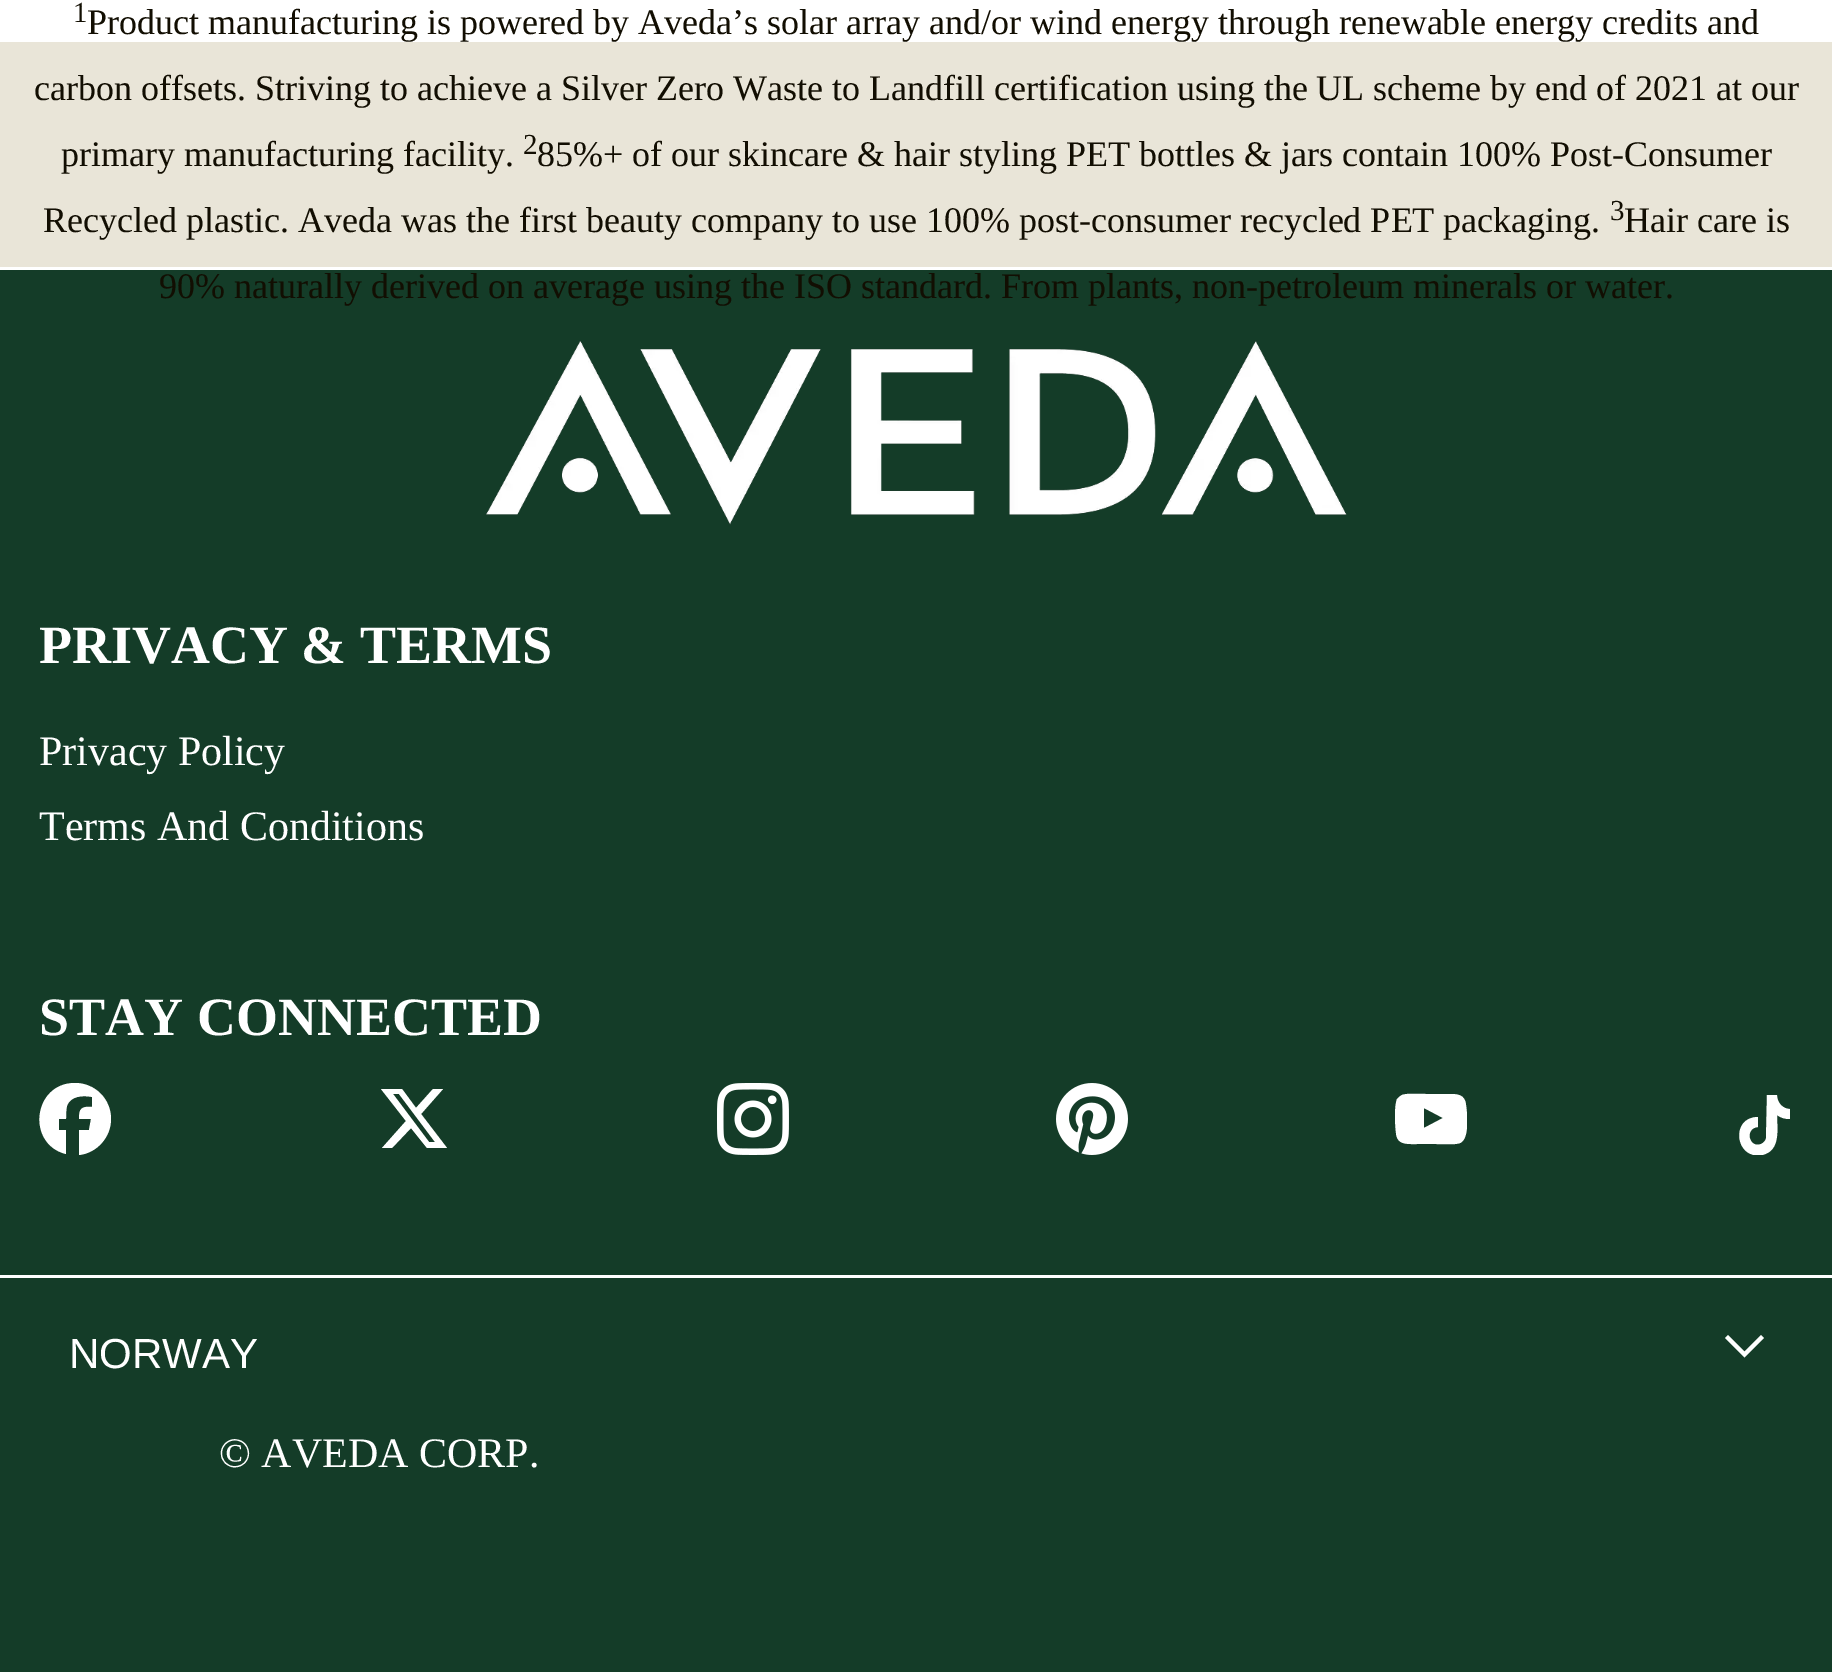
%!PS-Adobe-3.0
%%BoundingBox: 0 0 1832 1672
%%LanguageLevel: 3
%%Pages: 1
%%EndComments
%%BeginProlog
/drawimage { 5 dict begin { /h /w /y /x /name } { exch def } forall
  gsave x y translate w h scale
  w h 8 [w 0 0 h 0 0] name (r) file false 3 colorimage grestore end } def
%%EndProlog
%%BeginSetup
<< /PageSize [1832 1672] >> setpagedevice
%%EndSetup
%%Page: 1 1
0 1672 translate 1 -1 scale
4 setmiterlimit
1 setgray
0 0 1832 1672 rectfill
0.914 0.898 0.847 setrgbcolor
0 42 1832 225 rectfill
0.078 0.235 0.157 setrgbcolor
0 270 1832 1402 rectfill
1 setgray
0 1275 1832 3 rectfill
(images/1.raw) 486 341 861 184 drawimage
newpath 75 1083 moveto 33 1083 26 1144 66 1154 curveto 66 1130 lineto 59 1130 lineto 59 1119 lineto 66 1119 lineto 66 1115 66 1110 67 1106 curveto 70 1096 83 1095 92 1097 curveto 92 1107 lineto 81 1106 79 1109 79 1119 curveto 91 1119 lineto 89 1130 lineto 79 1130 lineto 79 1155 lineto 97 1153 111 1137 111 1119 curveto 111 1099 95 1083 75 1083 curveto closepath fill
newpath 433 1089 moveto 443 1089 lineto 421 1114 lineto 447 1148 lineto 427 1148 lineto 411 1128 lineto 392 1148 lineto 382 1148 lineto 406 1121 lineto 381 1089 lineto 402 1089 lineto 416 1108 lineto closepath 429 1142 moveto 435 1142 lineto 399 1094 lineto 393 1094 lineto closepath fill
(images/2.raw) 717 1083 72 72 drawimage
(images/3.raw) 1056 1083 72 72 drawimage
gsave
1395 1083 72 72 rectclip
newpath 1466 1105 moveto 1465 1094 1457 1094 1448 1094 curveto 1426 1094 lineto 1420 1094 1407 1093 1402 1095 curveto 1400 1096 1398 1098 1397 1099 curveto 1394 1107 1395 1125 1396 1133 curveto 1397 1145 1407 1144 1417 1144 curveto 1436 1144 lineto 1442 1144 1455 1145 1460 1143 curveto 1470 1139 1467 1112 1466 1105 curveto closepath 1424 1128 moveto 1424 1108 lineto 1443 1118 lineto closepath fill
grestore
gsave
1734 1095 60 60 rectclip
newpath 1777 1095 moveto 1767 1095 lineto 1766 1138 lineto 1766 1140 1764 1143 1761 1144 curveto 1749 1149 1744 1128 1758 1127 curveto 1758 1117 lineto 1730 1117 1735 1160 1762 1155 curveto 1781 1151 1777 1129 1777 1115 curveto 1781 1118 1785 1119 1790 1119 curveto 1790 1109 lineto 1783 1109 1777 1103 1777 1095 curveto closepath fill
grestore
newpath 1744.5 1357.5 moveto 1725 1338 lineto 1728 1335 lineto 1744.5 1351.5 lineto 1761 1335 lineto 1764 1338 lineto closepath fill
/LiberationSerif-Regular [29 0 0 -29 0 0] selectfont
0.071 0.055 0.008 setrgbcolor
73 22 moveto (1) show
/LiberationSerif-Regular [36 0 0 -36 0 0] selectfont
87 34 moveto (Product manufacturing is powered by Aveda’s solar array and/or wind energy through renewable energy credits and) show
34 100 moveto (carbon offsets. Striving to achieve a Silver Zero Waste to Landfill certification using the UL scheme by end of 2021 at our) show
61 166 moveto (primary manufacturing facility.) show
/LiberationSerif-Regular [29 0 0 -29 0 0] selectfont
523 154 moveto (2) show
/LiberationSerif-Regular [36 0 0 -36 0 0] selectfont
537 166 moveto (85%+ of our skincare & hair styling PET bottles & jars contain 100% Post-Consumer) show
43 232 moveto (Recycled plastic. Aveda was the first beauty company to use 100% post-consumer recycled PET packaging.) show
/LiberationSerif-Regular [29 0 0 -29 0 0] selectfont
1610 220 moveto (3) show
/LiberationSerif-Regular [36 0 0 -36 0 0] selectfont
1624 232 moveto (Hair care is) show
159 298 moveto (90% naturally derived on average using the ISO standard. From plants, non-petroleum minerals or water.) show
/LiberationSerif-Bold [54 0 0 -54 0 0] selectfont
1 setgray
39 663 moveto (PRIVACY & TERMS) show
/LiberationSerif-Regular [42 0 0 -42 0 0] selectfont
39 765 moveto (Privacy Policy) show
39 840 moveto (Terms And Conditions) show
/LiberationSerif-Bold [54 0 0 -54 0 0] selectfont
39 1035 moveto (STAY CONNECTED) show
/LiberationSans-Regular [42 0 0 -42 0 0] selectfont
69 1368 moveto (NORWAY) show
/LiberationSerif-Regular [42 0 0 -42 0 0] selectfont
219 1467 moveto (© AVEDA CORP.) show
showpage
%%EOF
